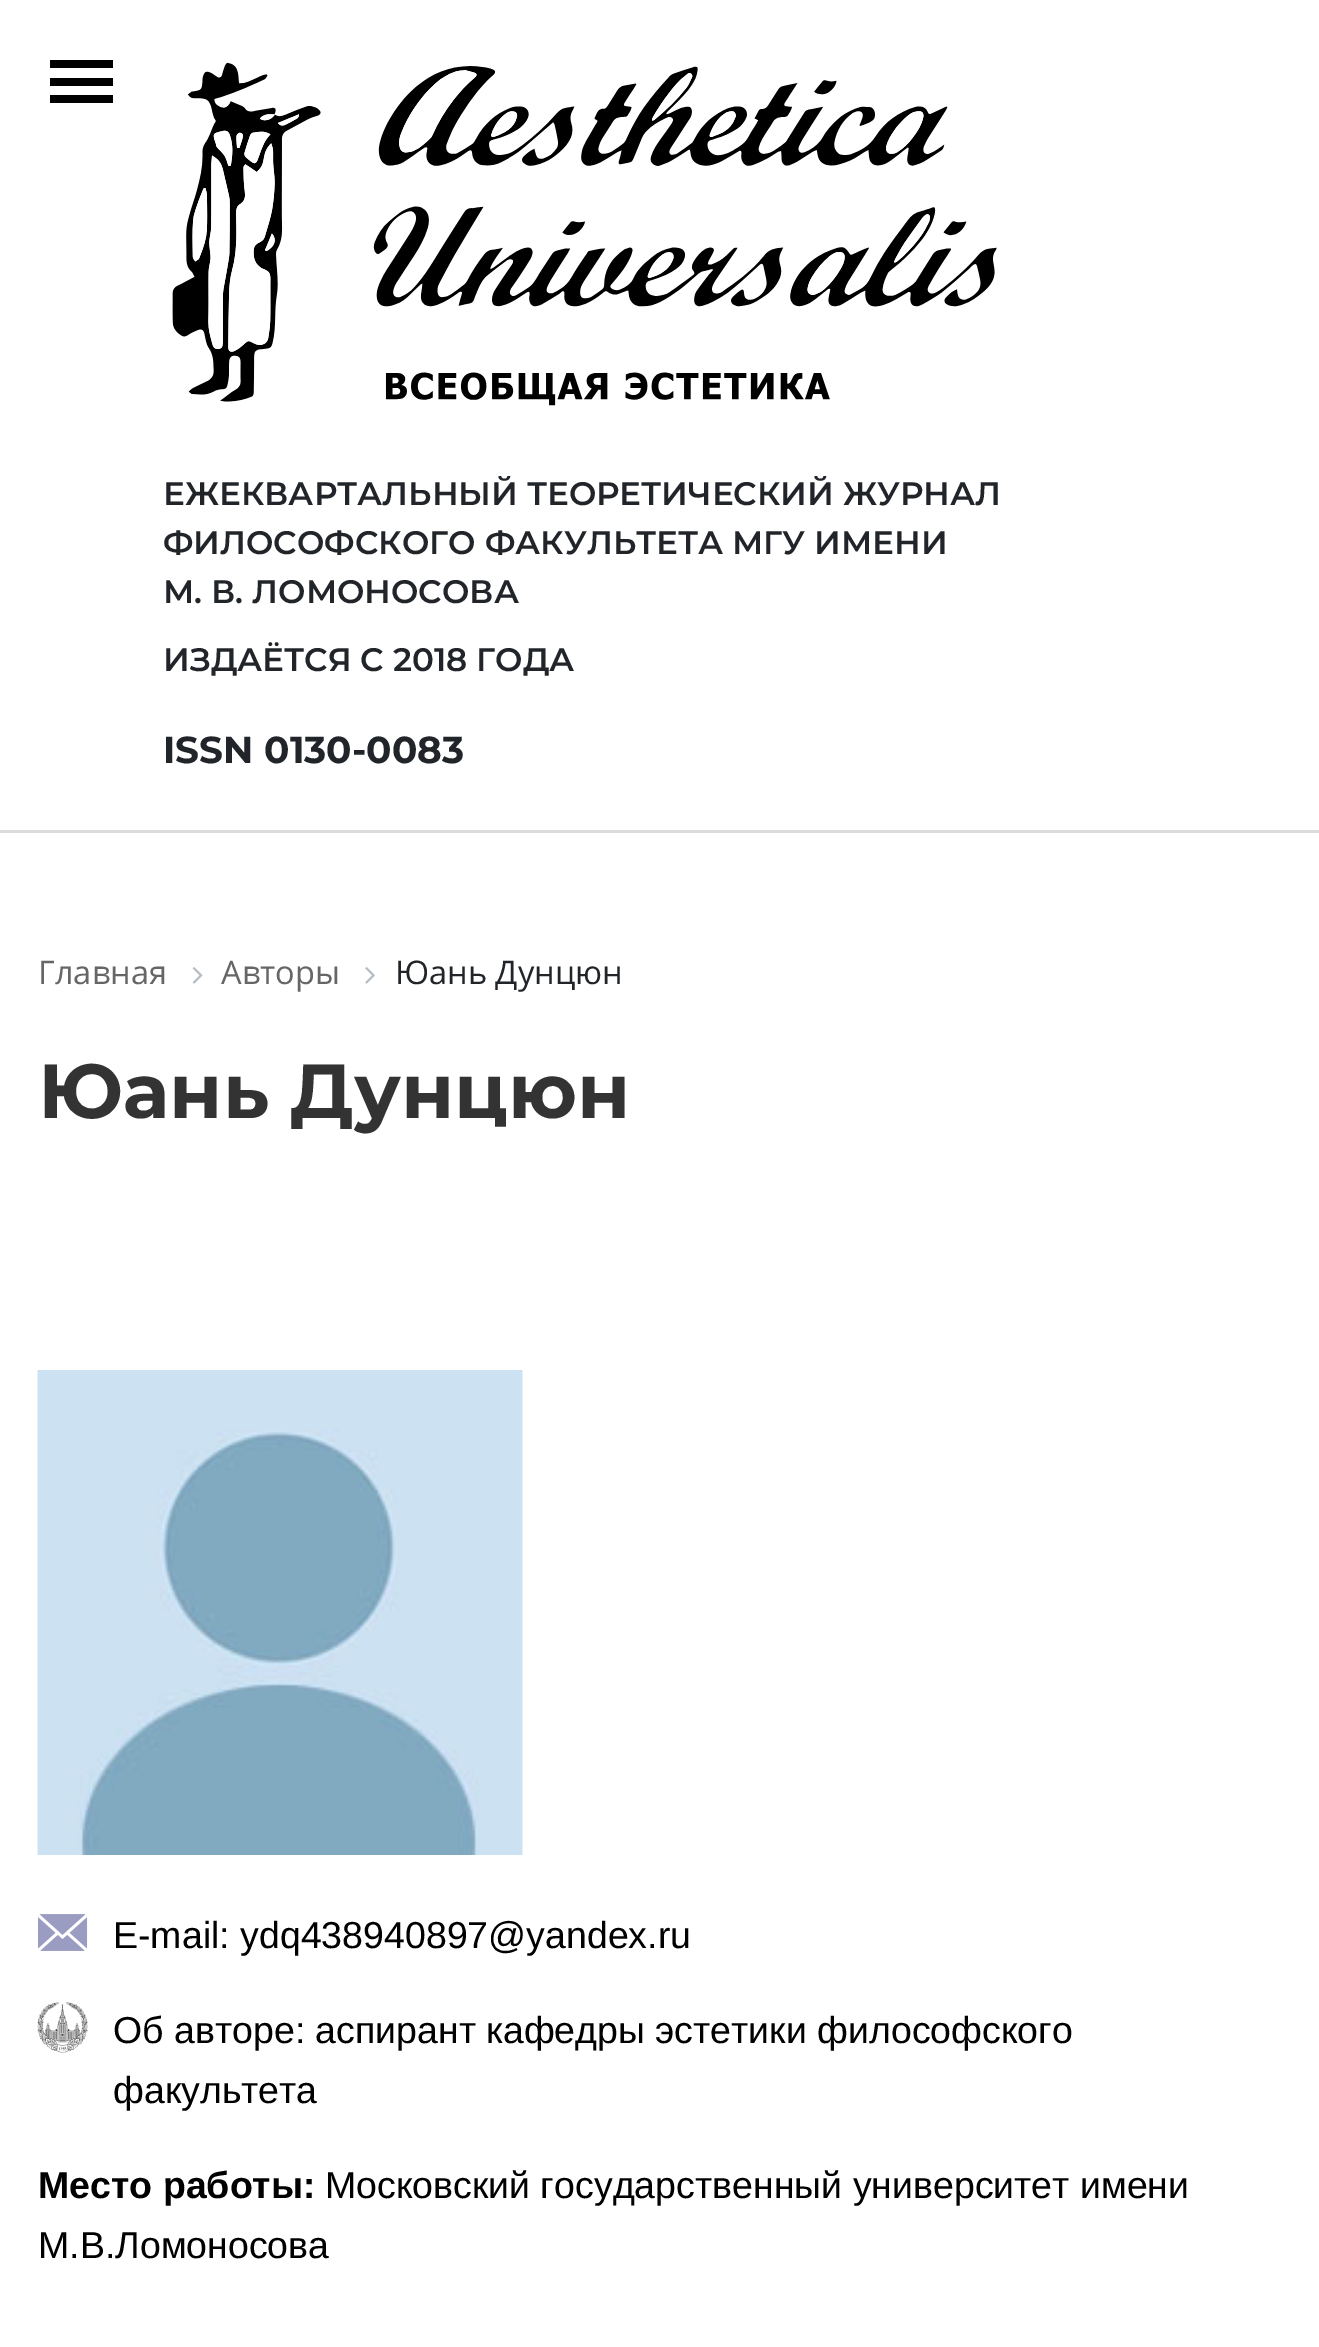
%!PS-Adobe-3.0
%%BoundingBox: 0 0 1319 2347
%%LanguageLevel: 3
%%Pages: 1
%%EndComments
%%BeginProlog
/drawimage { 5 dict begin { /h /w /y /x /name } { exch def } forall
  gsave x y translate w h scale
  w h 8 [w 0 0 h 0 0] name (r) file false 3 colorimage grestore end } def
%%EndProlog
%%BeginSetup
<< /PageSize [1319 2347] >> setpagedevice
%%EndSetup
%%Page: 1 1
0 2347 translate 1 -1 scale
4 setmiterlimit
1 setgray
0 0 1319 2347 rectfill
0 setgray
50 60 63 8 rectfill
50 78 63 8 rectfill
50 95 63 8 rectfill
0.863 setgray
0 830 1319 3 rectfill
(images/1.raw) 172 62 825 344 drawimage
(images/2.raw) 192 967 11 17 drawimage
(images/3.raw) 365 967 10 17 drawimage
(images/4.raw) 37 1370 486 485 drawimage
(images/5.raw) 38 1914 50 37 drawimage
(images/6.raw) 37 2002 51 51 drawimage
/Montserrat-SemiBold [32.5 0 0 -32.5 0 0] selectfont
0.129 0.145 0.161 setrgbcolor
163 505 moveto (ЕЖЕКВАРТАЛЬНЫЙ ТЕОРЕТИЧЕСКИЙ ЖУРНАЛ) show
163 554 moveto (ФИЛОСОФСКОГО ФАКУЛЬТЕТА МГУ ИМЕНИ) show
163 603 moveto (М. В. ЛОМОНОСОВА) show
163 671 moveto (ИЗДАЁТСЯ С 2018 ГОДА) show
/Montserrat-Bold [37.5 0 0 -37.5 0 0] selectfont
163 763 moveto (ISSN 0130-0083) show
/OpenSans-Regular [32.5 0 0 -32.5 0 0] selectfont
0.4 setgray
38 984 moveto (Главная) show
221 984 moveto (Авторы) show
0.129 0.145 0.161 setrgbcolor
395 984 moveto (Юань Дунцюн) show
/Montserrat-Bold [76.5 0 0 -76.5 0 0] selectfont
0.2 setgray
38 1118 moveto (Юань Дунцюн) show
/LiberationSans-Regular [37.5 0 0 -37.5 0 0] selectfont
0 setgray
113 1948 moveto (E-mail: ydq438940897@yandex.ru) show
113 2043 moveto (Об авторе: аспирант кафедры эстетики философского) show
113 2103 moveto (факультета) show
/LiberationSans-Bold [37.5 0 0 -37.5 0 0] selectfont
38 2198 moveto (Место работы:) show
/LiberationSans-Regular [37.5 0 0 -37.5 0 0] selectfont
325 2198 moveto (Московский государственный университет имени) show
38 2258 moveto (М.В.Ломоносова) show
showpage
%%EOF
